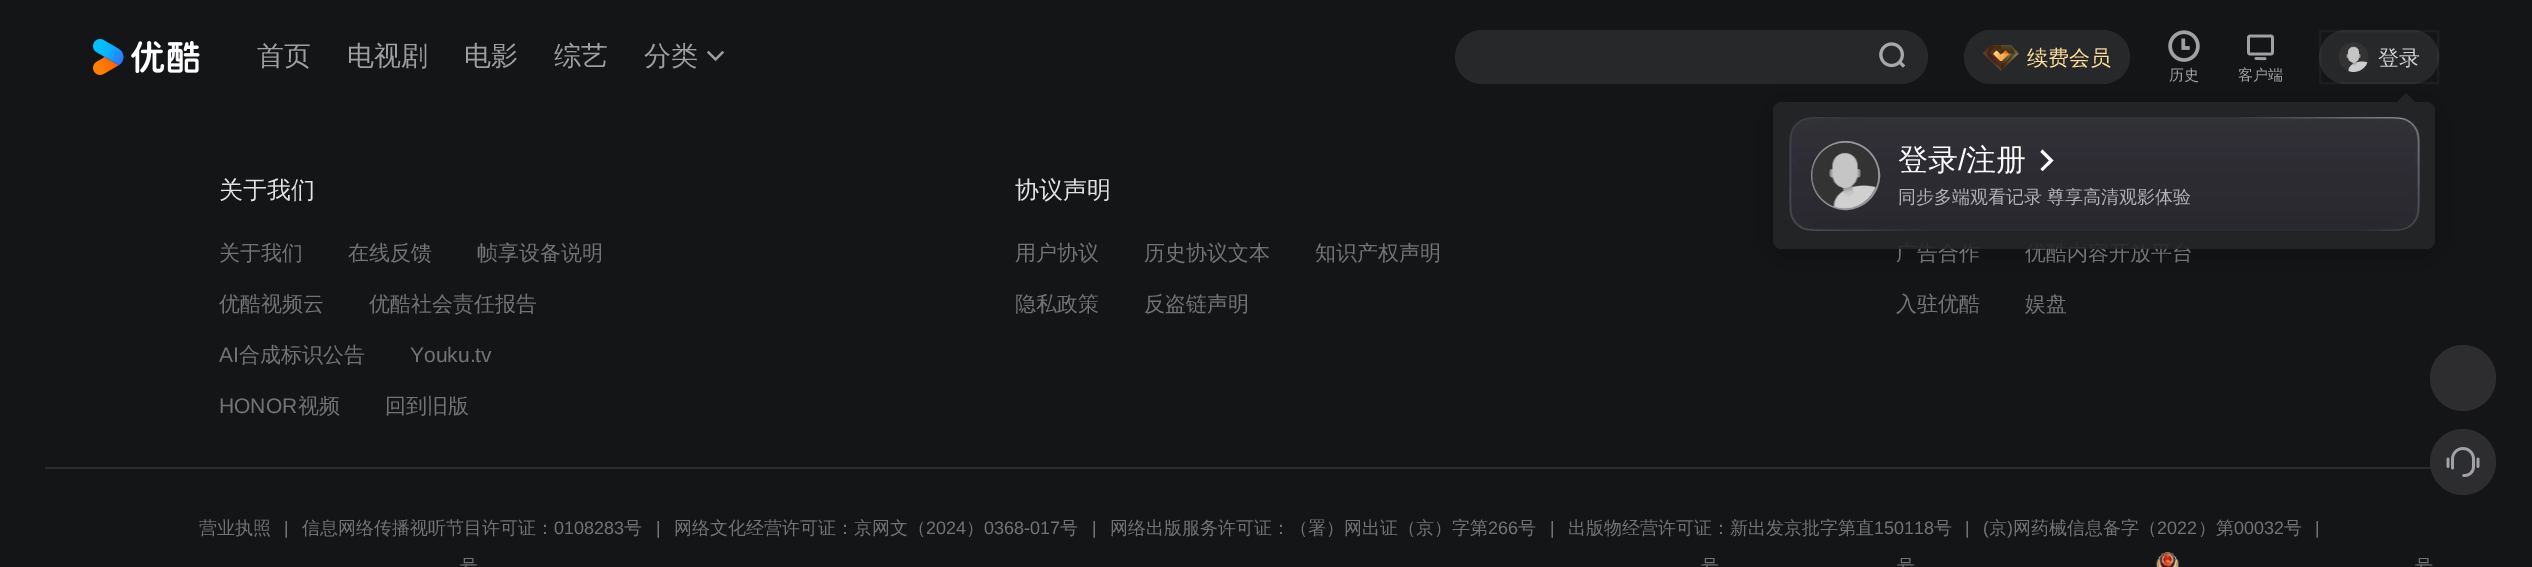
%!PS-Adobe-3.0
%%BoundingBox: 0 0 2532 567
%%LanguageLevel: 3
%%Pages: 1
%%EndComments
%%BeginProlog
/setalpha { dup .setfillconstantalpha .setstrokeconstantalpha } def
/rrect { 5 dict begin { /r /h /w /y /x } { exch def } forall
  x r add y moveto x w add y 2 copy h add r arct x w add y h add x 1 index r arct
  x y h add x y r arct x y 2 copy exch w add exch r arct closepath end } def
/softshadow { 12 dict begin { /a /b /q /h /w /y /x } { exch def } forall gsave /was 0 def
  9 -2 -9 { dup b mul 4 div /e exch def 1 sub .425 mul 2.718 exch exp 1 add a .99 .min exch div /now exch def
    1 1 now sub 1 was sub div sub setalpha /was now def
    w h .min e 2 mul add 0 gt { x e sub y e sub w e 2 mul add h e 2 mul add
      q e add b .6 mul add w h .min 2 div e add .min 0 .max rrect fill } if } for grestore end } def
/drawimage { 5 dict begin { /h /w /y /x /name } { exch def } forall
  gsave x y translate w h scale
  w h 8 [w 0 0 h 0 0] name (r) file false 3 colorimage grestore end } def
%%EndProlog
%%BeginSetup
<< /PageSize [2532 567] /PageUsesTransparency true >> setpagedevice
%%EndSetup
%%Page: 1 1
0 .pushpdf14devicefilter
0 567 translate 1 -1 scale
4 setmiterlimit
0.078 0.082 0.09 setrgbcolor
0 0 2532 567 rectfill
(images/1.raw) 93 39 107 36 drawimage
(images/2.raw) 707 50 17 11 drawimage
0.153 0.157 0.165 setrgbcolor
1455 30 473 54 27 rrect fill
(images/3.raw) 1879 42 27 26 drawimage
1964 30 166 54 27 rrect fill
(images/4.raw) 1983 45 36 26 drawimage
2319 30 120 54 27 rrect fill
0.04 setalpha
1 setgray
2 setlinewidth
2320 31 118 52 rectstroke
1 setalpha
(images/5.raw) 2338 42 31 30 drawimage
(images/8.raw) 2168 30 32 32 drawimage
(images/9.raw) 2247 34 27 27 drawimage
gsave
newpath 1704 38 moveto 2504 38 lineto 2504 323 lineto 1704 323 lineto closepath 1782 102 moveto 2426 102 lineto 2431 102 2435 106 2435 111 curveto 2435 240 lineto 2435 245 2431 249 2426 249 curveto 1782 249 lineto 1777 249 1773 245 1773 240 curveto 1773 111 lineto 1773 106 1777 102 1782 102 curveto closepath eoclip newpath
0 setgray
1773 107 662 147 9 22.5 0.3 softshadow
grestore
0.133 0.141 0.149 setrgbcolor
newpath 2415 102 moveto 2397 102 lineto 2406 93 lineto closepath fill
0.173 0.173 0.18 setrgbcolor
45 467 2442 2 rectfill
(images/10.raw) 2156 552 23 15 drawimage
0.176 0.176 0.188 setrgbcolor
newpath 2463 378 33 0 360 arc closepath fill
0.98 setalpha
0.176 0.176 0.192 setrgbcolor
newpath 2463 462 33 0 360 arc closepath fill
1 setalpha
(images/11.raw) 2446 447 34 30 drawimage
/WenQuanYiZenHei-Medium [27 0 0 -27 0 0] selectfont
0.62 setgray
257 65 moveto (首页) show
347 65 moveto (电视剧) show
464 65 moveto (电影) show
554 65 moveto (综艺) show
644 65 moveto (分类) show
/WenQuanYiZenHei-Medium [21 0 0 -21 0 0] selectfont
1 0.871 0.612 setrgbcolor
2027 65 moveto (续费会员) show
0.831 setgray
2378 65 moveto (登录) show
/WenQuanYiZenHei-Medium [15 0 0 -15 0 0] selectfont
0.62 setgray
2169 80 moveto (历史) show
2238 80 moveto (客户端) show
/WenQuanYiZenHei-Medium [24 0 0 -24 0 0] selectfont
0.878 0.882 0.882 setrgbcolor
219 198 moveto (关于我们) show
/WenQuanYiZenHei-Medium [21 0 0 -21 0 0] selectfont
0.447 0.451 0.455 setrgbcolor
219 260 moveto (关于我们) show
348 260 moveto (在线反馈) show
477 260 moveto (帧享设备说明) show
219 311 moveto (优酷视频云) show
369 311 moveto (优酷社会责任报告) show
/LiberationSans-Regular [21 0 0 -21 0 0] selectfont
219 362 moveto (AI) show
/WenQuanYiZenHei-Medium [21 0 0 -21 0 0] selectfont
239 362 moveto (合成标识公告) show
/LiberationSans-Regular [21 0 0 -21 0 0] selectfont
410 362 moveto (Youku.tv) show
219 413 moveto (HONOR) show
/WenQuanYiZenHei-Medium [21 0 0 -21 0 0] selectfont
298 413 moveto (视频) show
385 413 moveto (回到旧版) show
/WenQuanYiZenHei-Medium [24 0 0 -24 0 0] selectfont
0.878 0.882 0.882 setrgbcolor
1015 198 moveto (协议声明) show
/WenQuanYiZenHei-Medium [21 0 0 -21 0 0] selectfont
0.447 0.451 0.455 setrgbcolor
1015 260 moveto (用户协议) show
1144 260 moveto (历史协议文本) show
1315 260 moveto (知识产权声明) show
1015 311 moveto (隐私政策) show
1144 311 moveto (反盗链声明) show
1896 260 moveto (广告合作) show
2025 260 moveto (优酷内容开放平台) show
0.9 setalpha
0.141 0.149 0.157 setrgbcolor
1773 102 662 147 9 rrect fill
1 setalpha
(images/6.raw) 1789 117 631 114 drawimage
/WenQuanYiZenHei-Medium [18 0 0 -18 0 0] selectfont
0.698 0.698 0.706 setrgbcolor
1898 203 moveto (同步多端观看记录 尊享高清观影体验) show
1 setgray
newpath 2042.5 149.5 moveto 2053.5 160.5 lineto 2042.5 171 lineto 2040.5 169 lineto 2049 160.5 lineto 2040.5 152 lineto closepath fill
/WenQuanYiZenHei-Medium [30 0 0 -30 0 0] selectfont
1966 170 moveto (注册) show
/LiberationSans-Regular [30 0 0 -30 0 0] selectfont
1958 170 moveto (/) show
/WenQuanYiZenHei-Medium [30 0 0 -30 0 0] selectfont
1898 170 moveto (登录) show
0.5 setalpha
newpath 1845.5 175.5 33.5 0 360 arc closepath stroke
1 setalpha
(images/7.raw) 1811 142 68 67 drawimage
/WenQuanYiZenHei-Medium [21 0 0 -21 0 0] selectfont
0.447 0.451 0.455 setrgbcolor
1896 311 moveto (入驻优酷) show
2025 311 moveto (娱盘) show
/WenQuanYiZenHei-Medium [18 0 0 -18 0 0] selectfont
199 534 moveto (营业执照) show
/LiberationSans-Regular [18 0 0 -18 0 0] selectfont
284 534 moveto (|) show
/WenQuanYiZenHei-Medium [18 0 0 -18 0 0] selectfont
302 534 moveto (信息网络传播视听节目许可证：) show
/LiberationSans-Regular [18 0 0 -18 0 0] selectfont
554 534 moveto (0108283) show
/WenQuanYiZenHei-Medium [18 0 0 -18 0 0] selectfont
624 534 moveto (号) show
/LiberationSans-Regular [18 0 0 -18 0 0] selectfont
656 534 moveto (|) show
/WenQuanYiZenHei-Medium [18 0 0 -18 0 0] selectfont
674 534 moveto (网络文化经营许可证：京网文（) show
/LiberationSans-Regular [18 0 0 -18 0 0] selectfont
926 534 moveto (2024) show
/WenQuanYiZenHei-Medium [18 0 0 -18 0 0] selectfont
966 534 moveto (）) show
/LiberationSans-Regular [18 0 0 -18 0 0] selectfont
984 534 moveto (0368-017) show
/WenQuanYiZenHei-Medium [18 0 0 -18 0 0] selectfont
1060 534 moveto (号) show
/LiberationSans-Regular [18 0 0 -18 0 0] selectfont
1092 534 moveto (|) show
/WenQuanYiZenHei-Medium [18 0 0 -18 0 0] selectfont
1110 534 moveto (网络出版服务许可证：（署）网出证（京）字第) show
/LiberationSans-Regular [18 0 0 -18 0 0] selectfont
1488 534 moveto (266) show
/WenQuanYiZenHei-Medium [18 0 0 -18 0 0] selectfont
1518 534 moveto (号) show
/LiberationSans-Regular [18 0 0 -18 0 0] selectfont
1550 534 moveto (|) show
/WenQuanYiZenHei-Medium [18 0 0 -18 0 0] selectfont
1568 534 moveto (出版物经营许可证：新出发京批字第直) show
/LiberationSans-Regular [18 0 0 -18 0 0] selectfont
1874 534 moveto (150118) show
/WenQuanYiZenHei-Medium [18 0 0 -18 0 0] selectfont
1934 534 moveto (号) show
/LiberationSans-Regular [18 0 0 -18 0 0] selectfont
1965 534 moveto (|) show
1983 534 moveto (\() show
/WenQuanYiZenHei-Medium [18 0 0 -18 0 0] selectfont
1989 534 moveto (京) show
/LiberationSans-Regular [18 0 0 -18 0 0] selectfont
2007 534 moveto (\)) show
/WenQuanYiZenHei-Medium [18 0 0 -18 0 0] selectfont
2013 534 moveto (网药械信息备字（) show
/LiberationSans-Regular [18 0 0 -18 0 0] selectfont
2157 534 moveto (2022) show
/WenQuanYiZenHei-Medium [18 0 0 -18 0 0] selectfont
2198 534 moveto (）第) show
/LiberationSans-Regular [18 0 0 -18 0 0] selectfont
2234 534 moveto (00032) show
/WenQuanYiZenHei-Medium [18 0 0 -18 0 0] selectfont
2284 534 moveto (号) show
/LiberationSans-Regular [18 0 0 -18 0 0] selectfont
2315 534 moveto (|) show
/WenQuanYiZenHei-Medium [18 0 0 -18 0 0] selectfont
460 572 moveto (号) show
1701 572 moveto (号) show
1897 572 moveto (号) show
2415 572 moveto (号) show
.poppdf14devicefilter showpage
%%EOF
